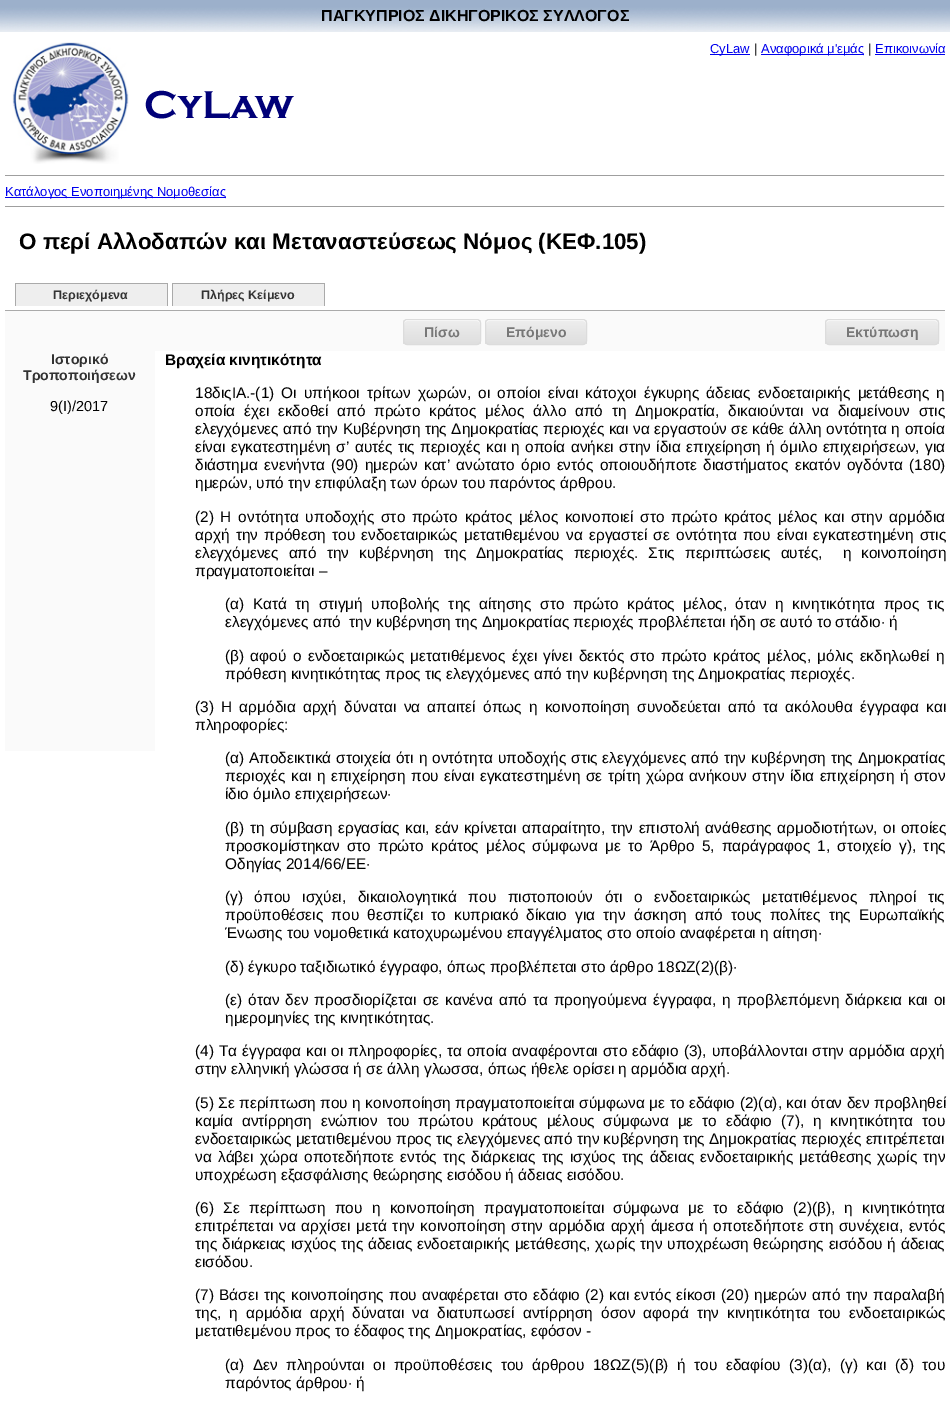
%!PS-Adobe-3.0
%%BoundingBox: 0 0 950 1404
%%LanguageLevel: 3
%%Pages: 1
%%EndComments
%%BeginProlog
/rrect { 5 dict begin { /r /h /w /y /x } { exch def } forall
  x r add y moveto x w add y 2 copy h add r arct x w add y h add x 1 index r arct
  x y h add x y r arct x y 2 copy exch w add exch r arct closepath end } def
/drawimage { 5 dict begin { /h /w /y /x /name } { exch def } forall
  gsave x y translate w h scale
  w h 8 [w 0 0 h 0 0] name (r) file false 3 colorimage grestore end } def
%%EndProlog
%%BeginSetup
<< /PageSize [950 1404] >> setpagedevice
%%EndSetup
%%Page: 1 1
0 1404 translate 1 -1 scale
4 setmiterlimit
1 setgray
0 0 950 1404 rectfill
(images/1.raw) 0 0 950 32 drawimage
(images/2.raw) 12 42 117 122 drawimage
(images/3.raw) 145 90 149 29 drawimage
0 0 0.933 setrgbcolor
710 54 40 1 rectfill
761 54 103 1 rectfill
875 54 70 1 rectfill
0.624 setgray
5 175 940 1 rectfill
0.933 setgray
944 175 1 1 rectfill
0 0 0.933 setrgbcolor
5 197 221 1 rectfill
0.624 setgray
5 206 940 1 rectfill
0.933 setgray
944 206 1 1 rectfill
0.667 setgray
5 310 940 1 rectfill
0.933 setgray
16 284 151 22 rectfill
0.667 setgray
15 283 153 1 rectfill
167 283 1 23 rectfill
15 283 1 23 rectfill
0.933 setgray
173 284 151 22 rectfill
0.667 setgray
172 283 153 1 rectfill
324 283 1 23 rectfill
172 283 1 23 rectfill
0.98 setgray
5 311 940 40 rectfill
gsave
403 319 78 26 4 rrect clip newpath
gsave newpath 403 320 moveto 481 320 lineto 481 344 lineto 403 344 lineto closepath clip newpath
<< /ShadingType 2 /ColorSpace /DeviceRGB /Coords [404 320 404 344] /Extend [true true] /Function << /FunctionType 3 /Domain [0 1] /Functions [<< /FunctionType 2 /Domain [0 1] /C0 [0.929 0.929 0.929] /C1 [0.929 0.929 0.929] /N 1 >> << /FunctionType 2 /Domain [0 1] /C0 [0.929 0.929 0.929] /C1 [0.875 0.875 0.875] /N 1 >>] /Bounds [0.05] /Encode [0 1 0 1] >> >> shfill grestore
grestore
1 setgray
newpath 407 321 moveto 477 321 lineto 479 321 480 322 480 324 curveto 480 317 469 320 465 320 curveto 419 320 lineto 415 320 404 317 404 324 curveto 404 322 405 321 407 321 curveto closepath fill
0.863 setgray
403.5 319.5 77 25 3.5 rrect stroke
gsave
485 319 102 26 4 rrect clip newpath
gsave newpath 485 320 moveto 587 320 lineto 587 344 lineto 485 344 lineto closepath clip newpath
<< /ShadingType 2 /ColorSpace /DeviceRGB /Coords [486 320 486 344] /Extend [true true] /Function << /FunctionType 3 /Domain [0 1] /Functions [<< /FunctionType 2 /Domain [0 1] /C0 [0.929 0.929 0.929] /C1 [0.929 0.929 0.929] /N 1 >> << /FunctionType 2 /Domain [0 1] /C0 [0.929 0.929 0.929] /C1 [0.875 0.875 0.875] /N 1 >>] /Bounds [0.05] /Encode [0 1 0 1] >> >> shfill grestore
grestore
1 setgray
newpath 489 321 moveto 583 321 lineto 585 321 586 322 586 324 curveto 586 316 570 320 567 320 curveto 505 320 lineto 502 320 486 316 486 324 curveto 486 322 487 321 489 321 curveto closepath fill
0.863 setgray
485.5 319.5 101 25 3.5 rrect stroke
gsave
825 319 114 26 4 rrect clip newpath
gsave newpath 825 320 moveto 939 320 lineto 939 344 lineto 825 344 lineto closepath clip newpath
<< /ShadingType 2 /ColorSpace /DeviceRGB /Coords [826 320 826 344] /Extend [true true] /Function << /FunctionType 3 /Domain [0 1] /Functions [<< /FunctionType 2 /Domain [0 1] /C0 [0.929 0.929 0.929] /C1 [0.929 0.929 0.929] /N 1 >> << /FunctionType 2 /Domain [0 1] /C0 [0.929 0.929 0.929] /C1 [0.875 0.875 0.875] /N 1 >>] /Bounds [0.05] /Encode [0 1 0 1] >> >> shfill grestore
grestore
1 setgray
newpath 829 321 moveto 935 321 lineto 937 321 938 322 938 324 curveto 938 322 937 320 935 320 curveto 847 320 lineto 845 320 826 315 826 324 curveto 826 322 827 321 829 321 curveto closepath fill
0.863 setgray
825.5 319.5 113 25 3.5 rrect stroke
0.98 setgray
5 351 150 400 rectfill
/LiberationSans-Bold [16 0 0 -16 0 0] selectfont
0 setgray
321 21 moveto (ΠΑΓΚΥΠΡΙΟΣ ΔΙΚΗΓΟΡΙΚΟΣ ΣΥΛΛΟΓΟΣ) show
/LiberationSans-Regular [13 0 0 -13 0 0] selectfont
0 0 0.933 setrgbcolor
710 53 moveto (CyLaw) show
0 setgray
754 53 moveto (|) show
0 0 0.933 setrgbcolor
761 53 moveto (Αναφορικά μ'εμάς) show
0 setgray
868 53 moveto (|) show
0 0 0.933 setrgbcolor
875 53 moveto (Επικοινωνία) show
5 196 moveto (Κατάλογος Ενοποιημένης Νομοθεσίας) show
/LiberationSans-Bold [22.4 0 0 -22.4 0 0] selectfont
0 setgray
19 249 moveto (Ο περί Αλλοδαπών και Μεταναστεύσεως Νόμος \(ΚΕΦ.105\)) show
/LiberationSans-Bold [12.5 0 0 -12.5 0 0] selectfont
0.2 setgray
53 299 moveto (Περιεχόμενα) show
201 299 moveto (Πλήρες Κείμενο) show
/LiberationSans-Bold [14 0 0 -14 0 0] selectfont
0.467 setgray
424 337 moveto (Πίσω) show
506 337 moveto (Επόμενο) show
846 337 moveto (Εκτύπωση) show
0.2 setgray
51 364 moveto (Ιστορικό) show
23 380 moveto (Τροποποιήσεων) show
/LiberationSans-Regular [14.5 0 0 -14.5 0 0] selectfont
0 setgray
50 411 moveto (9\(I\)/2017) show
/LiberationSans-Bold [15.4 0 0 -15.4 0 0] selectfont
165 365 moveto (Βραχεία κινητικότητα) show
/LiberationSans-Regular [15.4 0 0 -15.4 0 0] selectfont
195 398 moveto 2.9 0 32 (18διςΙΑ.-\(1\) Οι υπήκοοι τρίτων χωρών, οι οποίοι είναι κάτοχοι έγκυρης άδειας ενδοεταιρικής μετάθεσης η) widthshow
195 416 moveto 4.5 0 32 (οποία έχει εκδοθεί από πρώτο κράτος μέλος άλλο από τη Δημοκρατία, δικαιούνται να διαμείνουν στις) widthshow
195 434 moveto 0.3 0 32 (ελεγχόμενες από την Κυβέρνηση της Δημοκρατίας περιοχές και να εργαστούν σε κάθε άλλη οντότητα η οποία) widthshow
195 452 moveto 1.1 0 32 (είναι εγκατεστημένη σ’ αυτές τις περιοχές και η οποία ανήκει στην ίδια επιχείρηση ή όμιλο επιχειρήσεων, για) widthshow
195 470 moveto 2.1 0 32 (διάστημα ενενήντα \(90\) ημερών κατ’ ανώτατο όριο εντός οποιουδήποτε διαστήματος εκατόν ογδόντα \(180\)) widthshow
195 488 moveto (ημερών, υπό την επιφύλαξη των όρων του παρόντος άρθρου.) show
195 522 moveto 2.4 0 32 (\(2\) Η οντότητα υποδοχής στο πρώτο κράτος μέλος κοινοποιεί στο πρώτο κράτος μέλος και στην αρμόδια) widthshow
195 540 moveto 2 0 32 (αρχή την πρόθεση του ενδοεταιρικώς μετατιθεμένου να εργαστεί σε οντότητα που είναι εγκατεστημένη στις) widthshow
195 558 moveto 5.75 0 32 (ελεγχόμενες από την κυβέρνηση της Δημοκρατίας περιοχές. Στις περιπτώσεις αυτές,  η κοινοποίηση) widthshow
195 576 moveto (πραγματοποιείται –) show
225 609 moveto 4.25 0 32 (\(α\) Κατά τη στιγμή υποβολής της αίτησης στο πρώτο κράτος μέλος, όταν η κινητικότητα προς τις) widthshow
225 627 moveto (ελεγχόμενες από  την κυβέρνηση της Δημοκρατίας περιοχές προβλέπεται ήδη σε αυτό το στάδιο· ή) show
225 661 moveto 2.1 0 32 (\(β\) αφού ο ενδοεταιρικώς μετατιθέμενος έχει γίνει δεκτός στο πρώτο κράτος μέλος, μόλις εκδηλωθεί η) widthshow
225 679 moveto (πρόθεση κινητικότητας προς τις ελεγχόμενες από την κυβέρνηση της Δημοκρατίας περιοχές.) show
195 712 moveto 3 0 32 (\(3\) Η αρμόδια αρχή δύναται να απαιτεί όπως η κοινοποίηση συνοδεύεται από τα ακόλουθα έγγραφα και) widthshow
195 730 moveto (πληροφορίες:) show
225 763 moveto 0.6 0 32 (\(α\) Αποδεικτικά στοιχεία ότι η οντότητα υποδοχής στις ελεγχόμενες από την κυβέρνηση της Δημοκρατίας) widthshow
225 781 moveto 1.25 0 32 (περιοχές και η επιχείρηση που είναι εγκατεστημένη σε τρίτη χώρα ανήκουν στην ίδια επιχείρηση ή στον) widthshow
225 799 moveto (ίδιο όμιλο επιχειρήσεων∙) show
225 833 moveto 1.25 0 32 (\(β\) τη σύμβαση εργασίας και, εάν κρίνεται απαραίτητο, την επιστολή ανάθεσης αρμοδιοτήτων, οι οποίες) widthshow
225 851 moveto 2.9 0 32 (προσκομίστηκαν στο πρώτο κράτος μέλος σύμφωνα με το Άρθρο 5, παράγραφος 1, στοιχείο γ\), της) widthshow
225 869 moveto (Οδηγίας 2014/66/ΕΕ∙) show
225 902 moveto 7.25 0 32 (\(γ\) όπου ισχύει, δικαιολογητικά που πιστοποιούν ότι ο ενδοεταιρικώς μετατιθέμενος πληροί τις) widthshow
225 920 moveto 3.9 0 32 (προϋποθέσεις που θεσπίζει το κυπριακό δίκαιο για την άσκηση από τους πολίτες της Ευρωπαϊκής) widthshow
225 938 moveto (Ένωσης του νομοθετικά κατοχυρωμένου επαγγέλματος στο οποίο αναφέρεται η αίτηση∙) show
225 972 moveto (\(δ\) έγκυρο ταξιδιωτικό έγγραφο, όπως προβλέπεται στο άρθρο 18ΩΖ\(2\)\(β\)∙) show
225 1005 moveto 1.7 0 32 (\(ε\) όταν δεν προσδιορίζεται σε κανένα από τα προηγούμενα έγγραφα, η προβλεπόμενη διάρκεια και οι) widthshow
225 1023 moveto (ημερομηνίες της κινητικότητας.) show
195 1056 moveto 0.8 0 32 (\(4\) Τα έγγραφα και οι πληροφορίες, τα οποία αναφέρονται στο εδάφιο \(3\), υποβάλλονται στην αρμόδια αρχή) widthshow
195 1074 moveto (στην ελληνική γλώσσα ή σε άλλη γλωσσα, όπως ήθελε ορίσει η αρμόδια αρχή.) show
195 1108 moveto 0.25 0 32 (\(5\) Σε περίπτωση που η κοινοποίηση πραγματοποιείται σύμφωνα με το εδάφιο \(2\)\(α\), και όταν δεν προβληθεί) widthshow
195 1126 moveto 4.6 0 32 (καμία αντίρρηση ενώπιον του πρώτου κράτους μέλους σύμφωνα με το εδάφιο \(7\), η κινητικότητα του) widthshow
195 1144 moveto (ενδοεταιρικώς μετατιθεμένου προς τις ελεγχόμενες από την κυβέρνηση της Δημοκρατίας περιοχές επιτρέπεται) show
195 1162 moveto 2 0 32 (να λάβει χώρα οποτεδήποτε εντός της διάρκειας της ισχύος της άδειας ενδοεταιρικής μετάθεσης χωρίς την) widthshow
195 1180 moveto (υποχρέωση εξασφάλισης θεώρησης εισόδου ή άδειας εισόδου.) show
195 1213 moveto 5.1 0 32 (\(6\) Σε περίπτωση που η κοινοποίηση πραγματοποιείται σύμφωνα με το εδάφιο \(2\)\(β\), η κινητικότητα) widthshow
195 1231 moveto 1.4 0 32 (επιτρέπεται να αρχίσει μετά την κοινοποίηση στην αρμόδια αρχή άμεσα ή οποτεδήποτε στη συνέχεια, εντός) widthshow
195 1249 moveto 0.6 0 32 (της διάρκειας ισχύος της άδειας ενδοεταιρικής μετάθεσης, χωρίς την υποχρέωση θεώρησης εισόδου ή άδειας) widthshow
195 1267 moveto (εισόδου.) show
195 1300 moveto 1.1 0 32 (\(7\) Βάσει της κοινοποίησης που αναφέρεται στο εδάφιο \(2\) και εντός είκοσι \(20\) ημερών από την παραλαβή) widthshow
195 1318 moveto 3.75 0 32 (της, η αρμόδια αρχή δύναται να διατυπωσεί αντίρρηση όσον αφορά την κινητικότητα του ενδοεταιρικώς) widthshow
195 1336 moveto (μετατιθεμένου προς το έδαφος της Δημοκρατίας, εφόσον -) show
225 1370 moveto 4.25 0 32 (\(α\) Δεν πληρούνται οι προϋποθέσεις του άρθρου 18ΩΖ\(5\)\(β\) ή του εδαφίου \(3\)\(α\), \(γ\) και \(δ\) του) widthshow
225 1388 moveto (παρόντος άρθρου· ή) show
showpage
%%EOF
